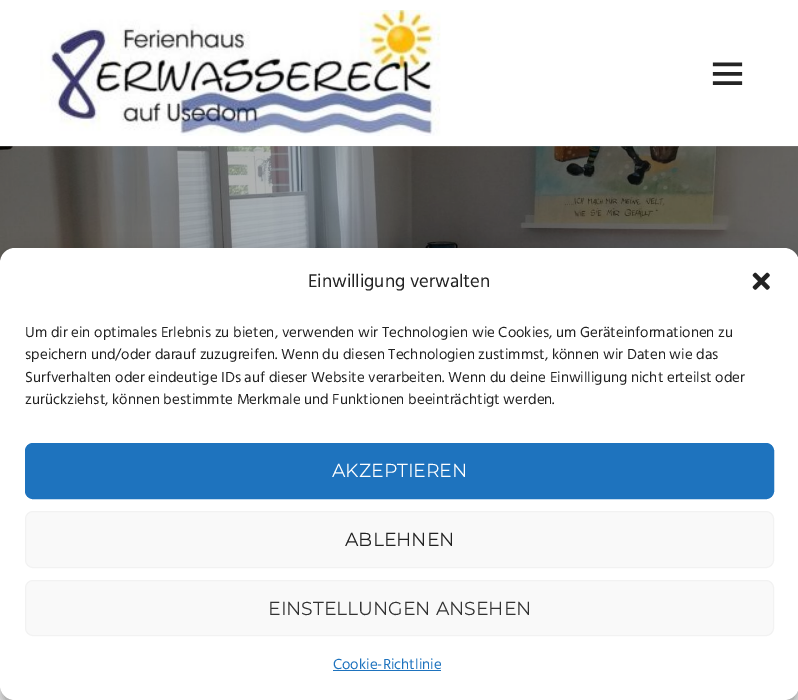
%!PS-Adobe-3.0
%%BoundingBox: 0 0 798 700
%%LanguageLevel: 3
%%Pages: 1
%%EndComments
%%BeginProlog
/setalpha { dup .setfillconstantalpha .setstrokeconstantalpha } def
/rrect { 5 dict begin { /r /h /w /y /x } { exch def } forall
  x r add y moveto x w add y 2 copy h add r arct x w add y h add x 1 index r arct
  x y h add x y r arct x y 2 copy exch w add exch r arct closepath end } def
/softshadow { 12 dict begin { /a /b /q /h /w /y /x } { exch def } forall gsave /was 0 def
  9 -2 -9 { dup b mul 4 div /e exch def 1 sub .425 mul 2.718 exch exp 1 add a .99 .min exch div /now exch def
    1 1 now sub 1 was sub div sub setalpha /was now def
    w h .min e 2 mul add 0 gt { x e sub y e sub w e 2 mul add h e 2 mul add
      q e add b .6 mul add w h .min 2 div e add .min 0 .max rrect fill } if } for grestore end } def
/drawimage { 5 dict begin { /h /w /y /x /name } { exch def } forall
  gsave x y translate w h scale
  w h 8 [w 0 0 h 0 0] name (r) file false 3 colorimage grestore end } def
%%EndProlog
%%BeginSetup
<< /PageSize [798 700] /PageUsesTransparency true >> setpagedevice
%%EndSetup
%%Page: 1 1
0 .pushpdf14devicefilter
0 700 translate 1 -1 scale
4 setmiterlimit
1 setgray
0 0 798 700 rectfill
(images/1.raw) 40 10 401 126 drawimage
(images/2.raw) 712 62 31 23 drawimage
(images/3.raw) 0 146 798 117 drawimage
0 setgray
0 255 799 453 15 4 0.23 softshadow
0 260 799 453 15 12.5 0.19 softshadow
1 setgray
0 248 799 452 15 rrect fill
(images/4.raw) 752 272 18 18 drawimage
0.118 0.451 0.745 setrgbcolor
25.5 443.5 748 55 7.5 rrect gsave fill grestore
stroke
0.976 setgray
25.5 511.5 748 56 7.5 rrect gsave fill grestore
0.949 setgray
stroke
0.976 setgray
25.5 580.5 748 55 7.5 rrect gsave fill grestore
0.949 setgray
stroke
0.118 0.451 0.745 setrgbcolor
333 670 108 1 rectfill
/Hind-Regular [18.75 0 0 -18.75 0 0] selectfont
0.133 setgray
308 287 moveto (Einwilligung verwalten) show
/Hind-Regular [15 0 0 -15 0 0] selectfont
25 337 moveto (Um dir ein optimales Erlebnis zu bieten, verwenden wir Technologien wie Cookies, um Geräteinformationen zu) show
25 359 moveto (speichern und/oder darauf zuzugreifen. Wenn du diesen Technologien zustimmst, können wir Daten wie das) show
25 382 moveto (Surfverhalten oder eindeutige IDs auf dieser Website verarbeiten. Wenn du deine Einwilligung nicht erteilst oder) show
25 404 moveto (zurückziehst, können bestimmte Merkmale und Funktionen beeinträchtigt werden.) show
/Montserrat-Regular [18.75 0 0 -18.75 0 0] selectfont
1 setgray
332 477 moveto (AKZEPTIEREN) show
0.133 setgray
345 546 moveto (ABLEHNEN) show
0.2 setgray
268 615 moveto (EINSTELLUNGEN ANSEHEN) show
/Hind-Regular [15 0 0 -15 0 0] selectfont
0.118 0.451 0.745 setrgbcolor
333 669 moveto (Cookie-Richtlinie) show
.poppdf14devicefilter showpage
%%EOF
